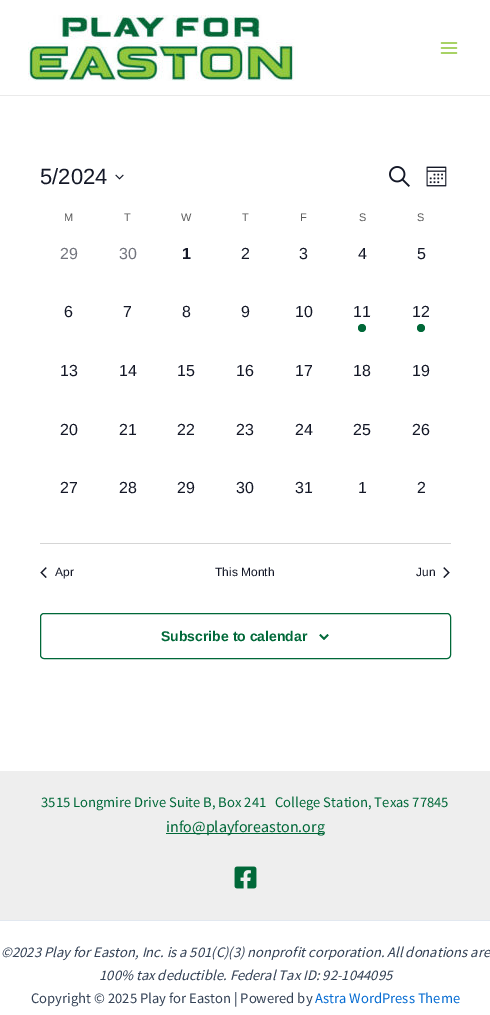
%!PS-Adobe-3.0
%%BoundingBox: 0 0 490 1015
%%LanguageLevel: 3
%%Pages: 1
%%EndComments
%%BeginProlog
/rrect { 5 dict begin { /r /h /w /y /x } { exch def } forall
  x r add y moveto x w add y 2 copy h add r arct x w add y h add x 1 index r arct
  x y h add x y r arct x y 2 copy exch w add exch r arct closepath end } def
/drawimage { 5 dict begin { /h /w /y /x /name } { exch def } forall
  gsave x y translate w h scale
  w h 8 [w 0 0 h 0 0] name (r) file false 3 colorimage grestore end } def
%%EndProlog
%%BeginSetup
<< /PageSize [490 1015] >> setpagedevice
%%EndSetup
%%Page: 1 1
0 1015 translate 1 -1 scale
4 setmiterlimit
1 setgray
0 0 490 1015 rectfill
0.918 setgray
0 95 490 1 rectfill
(images/1.raw) 28 15 270 66 drawimage
(images/2.raw) 440 42 18 12 drawimage
(images/3.raw) 115 174 9 6 drawimage
(images/4.raw) 389 166 21 21 drawimage
(images/5.raw) 426 166 21 21 drawimage
0 0.408 0.22 setrgbcolor
newpath 362 328 4 0 360 arc closepath fill
newpath 421 328 4 0 360 arc closepath fill
0.835 setgray
40 543 411 1 rectfill
(images/6.raw) 40 567 7 11 drawimage
(images/7.raw) 443 567 7 11 drawimage
0 0.408 0.22 setrgbcolor
40.5 613.5 410 45 3.5 rrect stroke
(images/8.raw) 319 634 10 6 drawimage
0.933 setgray
0 771 490 149 rectfill
0 0.408 0.22 setrgbcolor
166 833 158 1 rectfill
(images/9.raw) 234 866 23 23 drawimage
0.886 0.91 0.941 setrgbcolor
0 920 490 1 rectfill
/LiberationSans-Regular [22 0 0 -22 0 0] selectfont
0.078 0.094 0.153 setrgbcolor
40 184 moveto (5/2024) show
/LiberationSans-Regular [11 0 0 -11 0 0] selectfont
0.365 setgray
64 221 moveto (M) show
124 221 moveto (T) show
181 221 moveto (W) show
242 221 moveto (T) show
300 221 moveto (F) show
359 221 moveto (S) show
417 221 moveto (S) show
/LiberationSans-Regular [16 0 0 -16 0 0] selectfont
0.447 0.455 0.49 setrgbcolor
60 259 moveto (29) show
119 259 moveto (30) show
/LiberationSans-Bold [16 0 0 -16 0 0] selectfont
0.078 0.094 0.153 setrgbcolor
182 259 moveto (1) show
/LiberationSans-Regular [16 0 0 -16 0 0] selectfont
241 259 moveto (2) show
299 259 moveto (3) show
358 259 moveto (4) show
417 259 moveto (5) show
64 317 moveto (6) show
123 317 moveto (7) show
182 317 moveto (8) show
241 317 moveto (9) show
295 317 moveto (10) show
353 317 moveto (11) show
412 317 moveto (12) show
60 376 moveto (13) show
119 376 moveto (14) show
177 376 moveto (15) show
236 376 moveto (16) show
295 376 moveto (17) show
353 376 moveto (18) show
412 376 moveto (19) show
60 435 moveto (20) show
119 435 moveto (21) show
177 435 moveto (22) show
236 435 moveto (23) show
295 435 moveto (24) show
353 435 moveto (25) show
412 435 moveto (26) show
60 493 moveto (27) show
119 493 moveto (28) show
177 493 moveto (29) show
236 493 moveto (30) show
295 493 moveto (31) show
358 493 moveto (1) show
417 493 moveto (2) show
/LiberationSans-Regular [12 0 0 -12 0 0] selectfont
55 576 moveto (Apr) show
215 576 moveto (This Month) show
416 576 moveto (Jun) show
/LiberationSans-Bold [14 0 0 -14 0 0] selectfont
0 0.408 0.22 setrgbcolor
161 641 moveto (Subscribe to calendar) show
/SourceSansPro-Regular [14.6 0 0 -14.6 0 0] selectfont
41 807 moveto (3515 Longmire Drive Suite B, Box 241) show
275 807 moveto (College Station, Texas 77845) show
/SourceSansPro-Regular [16 0 0 -16 0 0] selectfont
166 832 moveto (info@playforeaston.org) show
/SourceSansPro-Italic [14.6 0 0 -14.6 0 0] selectfont
0.2 0.255 0.333 setrgbcolor
1 957 moveto (©2023 Play for Easton, Inc. is a 501\(C\)\(3\) nonprofit corporation. All donations are) show
99 980 moveto (100% tax deductible. Federal Tax ID: 92-1044095) show
/SourceSansPro-Regular [14.6 0 0 -14.6 0 0] selectfont
31 1003 moveto (Copyright © 2025 Play for Easton | Powered by) show
0.016 0.42 0.824 setrgbcolor
315 1003 moveto (Astra WordPress Theme) show
showpage
%%EOF
